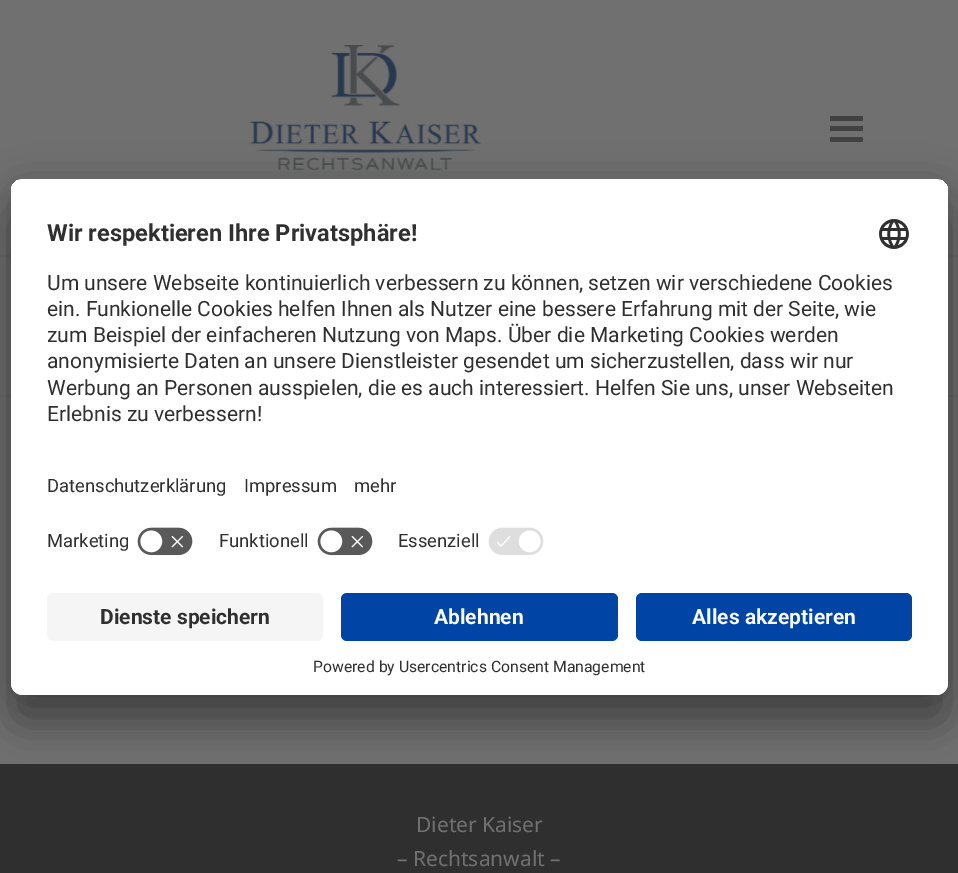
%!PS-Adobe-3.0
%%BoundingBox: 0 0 958 873
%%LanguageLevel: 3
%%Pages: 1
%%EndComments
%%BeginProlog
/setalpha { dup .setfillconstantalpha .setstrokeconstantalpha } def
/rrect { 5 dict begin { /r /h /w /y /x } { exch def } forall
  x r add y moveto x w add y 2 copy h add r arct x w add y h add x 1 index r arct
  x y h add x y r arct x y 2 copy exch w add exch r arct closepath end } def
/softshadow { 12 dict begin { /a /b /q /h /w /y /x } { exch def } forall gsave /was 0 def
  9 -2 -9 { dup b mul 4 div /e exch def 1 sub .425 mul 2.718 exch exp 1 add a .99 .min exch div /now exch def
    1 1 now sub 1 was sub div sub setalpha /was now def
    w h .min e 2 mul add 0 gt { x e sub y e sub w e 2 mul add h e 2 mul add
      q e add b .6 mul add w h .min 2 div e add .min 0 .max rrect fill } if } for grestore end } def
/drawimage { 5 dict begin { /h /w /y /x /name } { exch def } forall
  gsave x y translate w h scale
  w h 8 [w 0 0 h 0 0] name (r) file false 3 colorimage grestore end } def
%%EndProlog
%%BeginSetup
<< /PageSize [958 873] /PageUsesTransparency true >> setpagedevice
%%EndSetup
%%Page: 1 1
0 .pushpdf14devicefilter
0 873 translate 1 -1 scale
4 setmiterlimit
0.439 setgray
0 0 958 873 rectfill
(images/4.raw) 96 45 540 134 drawimage
0.42 setgray
0 255 958 2 rectfill
0 395 958 2 rectfill
0.184 setgray
0 764 958 109 rectfill
0 setgray
11 209 937 516 12 21 0.3 softshadow
0.255 setgray
830 126 33 5 rectfill
830 137 33 5 rectfill
0 setgray
11 186 937 516 12 19.5 0.22 softshadow
1 setgray
11 179 937 516 12 rrect fill
gsave
11 179 937 516 12 rrect clip newpath
newpath 23 179 moveto 936 179 lineto 942.5 179 948 184.5 948 191 curveto 948 581 lineto 11 581 lineto 11 191 lineto 11 184.5 16.5 179 23 179 curveto closepath clip newpath
11 180 937 401 rectfill
11 180 937 341 rectfill
grestore
(images/1.raw) 879 219 30 30 drawimage
(images/2.raw) 137 527 56 29 drawimage
(images/2.raw) 317 527 56 29 drawimage
(images/3.raw) 488 527 56 28 drawimage
newpath 11 581 moveto 948 581 lineto 948 683 lineto 948 689.5 942.5 695 936 695 curveto 23 695 lineto 16.5 695 11 689.5 11 683 curveto closepath fill
0.961 setgray
47 593 276 48 6 rrect fill
0 0.271 0.647 setrgbcolor
341 593 277 48 6 rrect fill
636 593 276 48 6 rrect fill
0.255 setgray
830 116 33 5 rectfill
/Roboto-Bold [23.6 0 0 -23.6 0 0] selectfont
0.188 setgray
47 241 moveto (Wir respektieren Ihre Privatsphäre!) show
/Roboto-Regular [21 0 0 -21 0 0] selectfont
47 290 moveto (Um unsere Webseite kontinuierlich verbessern zu können, setzen wir verschiedene Cookies) show
47 316 moveto (ein. Funkionelle Cookies helfen Ihnen als Nutzer eine bessere Erfahrung mit der Seite, wie) show
47 342 moveto (zum Beispiel der einfacheren Nutzung von Maps. Über die Marketing Cookies werden) show
47 368 moveto (anonymisierte Daten an unsere Dienstleister gesendet um sicherzustellen, dass wir nur) show
47 395 moveto (Werbung an Personen ausspielen, die es auch interessiert. Helfen Sie uns, unser Webseiten) show
47 421 moveto (Erlebnis zu verbessern!) show
/Roboto-Regular [18.4 0 0 -18.4 0 0] selectfont
47 492 moveto (Datenschutzerklärung) show
244 492 moveto (Impressum) show
354 492 moveto (mehr) show
47 547 moveto (Marketing) show
219 547 moveto (Funktionell) show
398 547 moveto (Essenziell) show
/Roboto-Bold [21 0 0 -21 0 0] selectfont
100 624 moveto (Dienste speichern) show
0.98 setgray
434 624 moveto (Ablehnen) show
692 624 moveto (Alles akzeptieren) show
/Roboto-Regular [15.75 0 0 -15.75 0 0] selectfont
0.188 setgray
313 672 moveto (Powered by Usercentrics Consent Management) show
/NotoSans-Regular [21 0 0 -21 0 0] selectfont
0.439 setgray
416 832 moveto (Dieter Kaiser) show
397 866 moveto (– Rechtsanwalt –) show
.poppdf14devicefilter showpage
%%EOF
